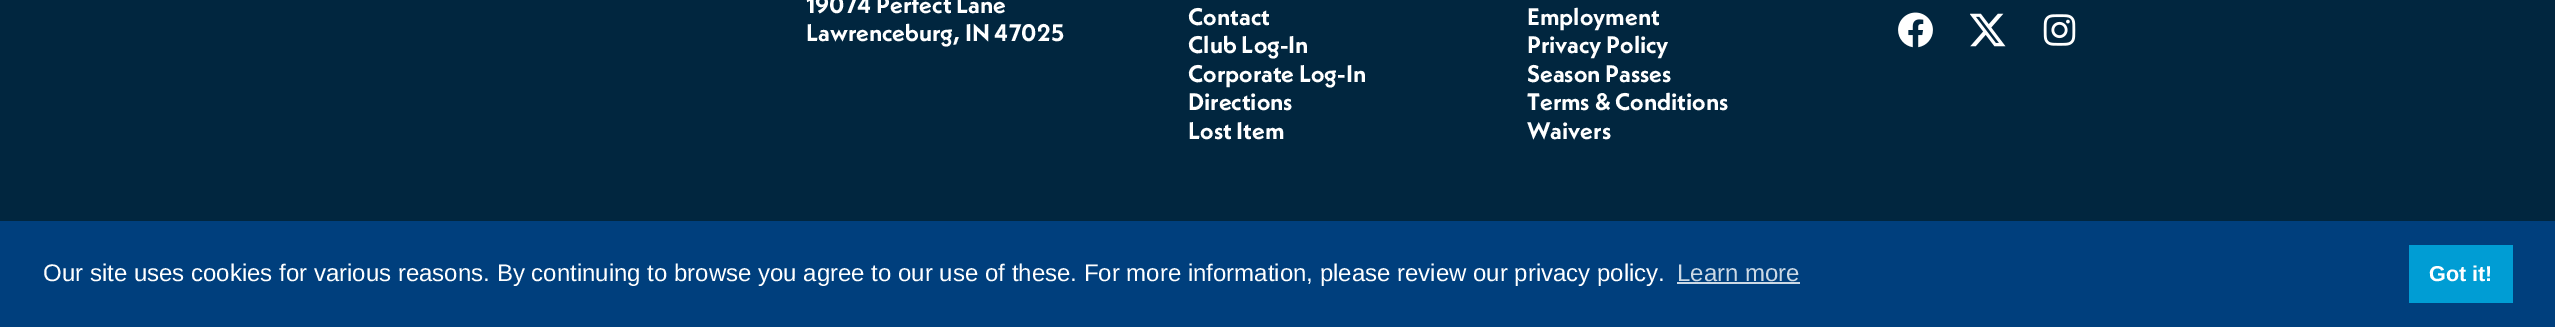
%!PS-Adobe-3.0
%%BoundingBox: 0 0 2555 327
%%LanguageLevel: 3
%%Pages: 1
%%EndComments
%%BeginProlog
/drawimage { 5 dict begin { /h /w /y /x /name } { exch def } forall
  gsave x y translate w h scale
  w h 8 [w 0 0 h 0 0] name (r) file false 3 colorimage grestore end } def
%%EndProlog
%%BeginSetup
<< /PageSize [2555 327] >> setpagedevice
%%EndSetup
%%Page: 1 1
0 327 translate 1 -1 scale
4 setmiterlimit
0.004 0.149 0.247 setrgbcolor
0 0 2555 327 rectfill
(images/1.raw) 1898 12 35 36 drawimage
(images/2.raw) 1970 13 36 34 drawimage
(images/3.raw) 2043 14 33 32 drawimage
0 0.247 0.49 setrgbcolor
0 221 2555 106 rectfill
0.8 0.851 0.898 setrgbcolor
1677 282 123 2 rectfill
0 0.616 0.831 setrgbcolor
2409 245 104 58 rectfill
/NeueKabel-Bold [24 0 0 -24 0 0] selectfont
1 setgray
806 13 moveto (19074 Perfect Lane) show
806 41 moveto (Lawrenceburg, IN 47025) show
1188 25 moveto (Contact) show
1188 53 moveto (Club Log-In) show
1188 82 moveto (Corporate Log-In) show
1188 110 moveto (Directions) show
1188 139 moveto (Lost Item) show
1527 25 moveto (Employment) show
1527 53 moveto (Privacy Policy) show
1527 82 moveto (Season Passes) show
1527 110 moveto (Terms & Conditions) show
1527 139 moveto (Waivers) show
/LiberationSans-Regular [24 0 0 -24 0 0] selectfont
43 281 moveto (Our site uses cookies for various reasons. By continuing to browse you agree to our use of these. For more information, please review our privacy policy.) show
0.8 0.851 0.898 setrgbcolor
1677 281 moveto (Learn more) show
/LiberationSans-Bold [21.5 0 0 -21.5 0 0] selectfont
1 setgray
2429 281 moveto (Got it!) show
showpage
%%EOF
